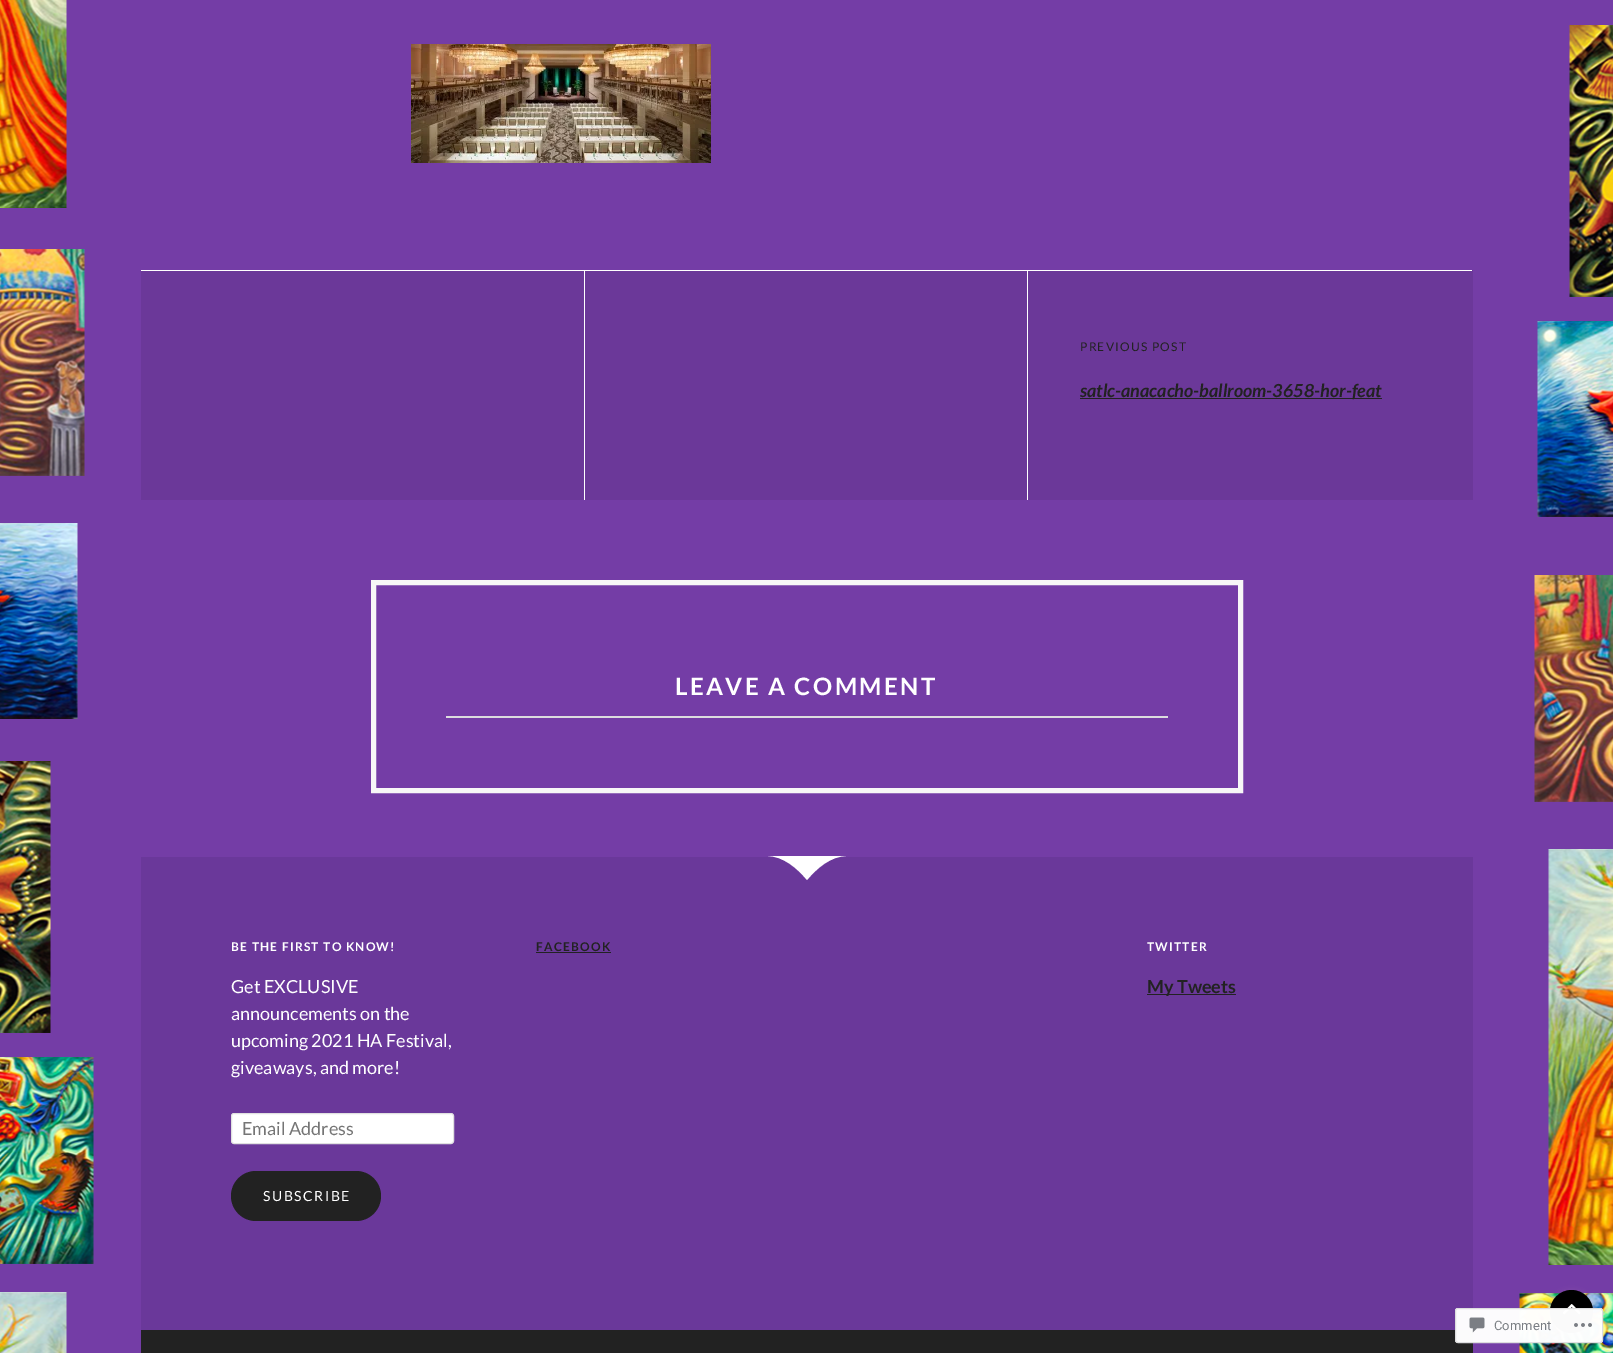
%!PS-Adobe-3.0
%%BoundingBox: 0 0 1613 1353
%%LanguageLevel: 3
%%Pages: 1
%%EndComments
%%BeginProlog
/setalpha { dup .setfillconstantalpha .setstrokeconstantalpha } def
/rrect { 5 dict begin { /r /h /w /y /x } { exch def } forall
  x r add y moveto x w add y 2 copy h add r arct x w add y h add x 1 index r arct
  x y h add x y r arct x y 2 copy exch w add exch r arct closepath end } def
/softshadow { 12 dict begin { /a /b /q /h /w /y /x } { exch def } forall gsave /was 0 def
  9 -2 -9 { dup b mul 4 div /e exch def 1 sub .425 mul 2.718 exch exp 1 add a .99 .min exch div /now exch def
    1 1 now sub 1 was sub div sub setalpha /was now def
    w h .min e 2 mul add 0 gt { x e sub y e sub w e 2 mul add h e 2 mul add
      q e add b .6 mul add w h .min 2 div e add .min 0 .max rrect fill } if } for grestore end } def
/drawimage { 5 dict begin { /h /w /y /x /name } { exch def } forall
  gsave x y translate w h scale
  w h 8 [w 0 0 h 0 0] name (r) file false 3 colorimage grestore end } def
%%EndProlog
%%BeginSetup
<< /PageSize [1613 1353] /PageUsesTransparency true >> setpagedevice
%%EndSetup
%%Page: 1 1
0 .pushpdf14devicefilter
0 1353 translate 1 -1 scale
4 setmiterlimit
1 setgray
0 0 1613 1353 rectfill
(images/1.raw) 0 0 1613 1353 drawimage
(images/2.raw) 411 44 300 119 drawimage
0.42 0.22 0.6 setrgbcolor
141 270 1332 230 rectfill
1 setgray
141 270 1331 1 rectfill
1027 270 1 230 rectfill
584 270 1 230 rectfill
0.133 setgray
1080 398 302 1 rectfill
0.969 setgray
5 setlinewidth
373.5 582.5 867 208 rectstroke
0.863 0.863 0.871 setrgbcolor
446 716 722 2 rectfill
0.416 0.22 0.604 setrgbcolor
141 857 1332 473 rectfill
1 setgray
newpath 807 880 moveto 817 868 831 856 847 856 curveto 767 856 lineto 783 856 797 868 807 880 curveto closepath eofill
231.5 1113.5 222 30 2.5 rrect gsave fill grestore
0.878 setgray
1 setlinewidth
stroke
0.133 setgray
231 1171 150 50 25 rrect fill
536 952 75 1 rectfill
1147 994 89 1 rectfill
141 1330 1332 23 rectfill
0.675 0.459 0.675 setrgbcolor
1550 1292 43 43 21.5 3 0.5 softshadow
0 setgray
newpath 1571.5 1311.5 21.5 0 360 arc closepath fill
(images/5.raw) 1562 1304 19 11 drawimage
0.98 setalpha
1 setgray
1455 1308 148 35 3 rrect fill
0.863 0.863 0.871 setrgbcolor
1455.5 1308.5 147 34 2.5 rrect stroke
1 setalpha
(images/3.raw) 1469 1317 16 16 drawimage
(images/4.raw) 1574 1323 18 4 drawimage
/Lato-Regular [12 0 0 -12 0 0] selectfont
0.133 setgray
1080 351 moveto 1.2 0 (PREVIOUS POST) ashow
/Lato-BoldItalic [18 0 0 -18 0 0] selectfont
1080 397 moveto (satlc-anacacho-ballroom-3658-hor-feat) show
/Lato-Bold [24 0 0 -24 0 0] selectfont
1 setgray
675 695 moveto 2.4 0 (LEAVE A COMMENT) ashow
/Lato-Bold [12 0 0 -12 0 0] selectfont
231 951 moveto 1.2 0 (BE THE FIRST TO KNOW!) ashow
/Lato-Regular [18 0 0 -18 0 0] selectfont
231 993 moveto (Get EXCLUSIVE) show
231 1020 moveto (announcements on the) show
231 1047 moveto (upcoming 2021 HA Festival,) show
231 1074 moveto (giveaways, and more!) show
0.459 setgray
242 1135 moveto (Email Address) show
/Lato-Regular [14 0 0 -14 0 0] selectfont
1 setgray
263 1201 moveto 1.5 0 (SUBSCRIBE) ashow
/Lato-Bold [12 0 0 -12 0 0] selectfont
0.133 setgray
536 951 moveto 1.2 0 (FACEBOOK) ashow
1 setgray
1147 951 moveto 1.2 0 (TWITTER) ashow
/Lato-Bold [18 0 0 -18 0 0] selectfont
0.133 setgray
1147 993 moveto (My Tweets) show
/Roboto-Regular [13 0 0 -13 0 0] selectfont
0.482 0.498 0.518 setrgbcolor
1494 1330 moveto (Comment) show
.poppdf14devicefilter showpage
%%EOF
